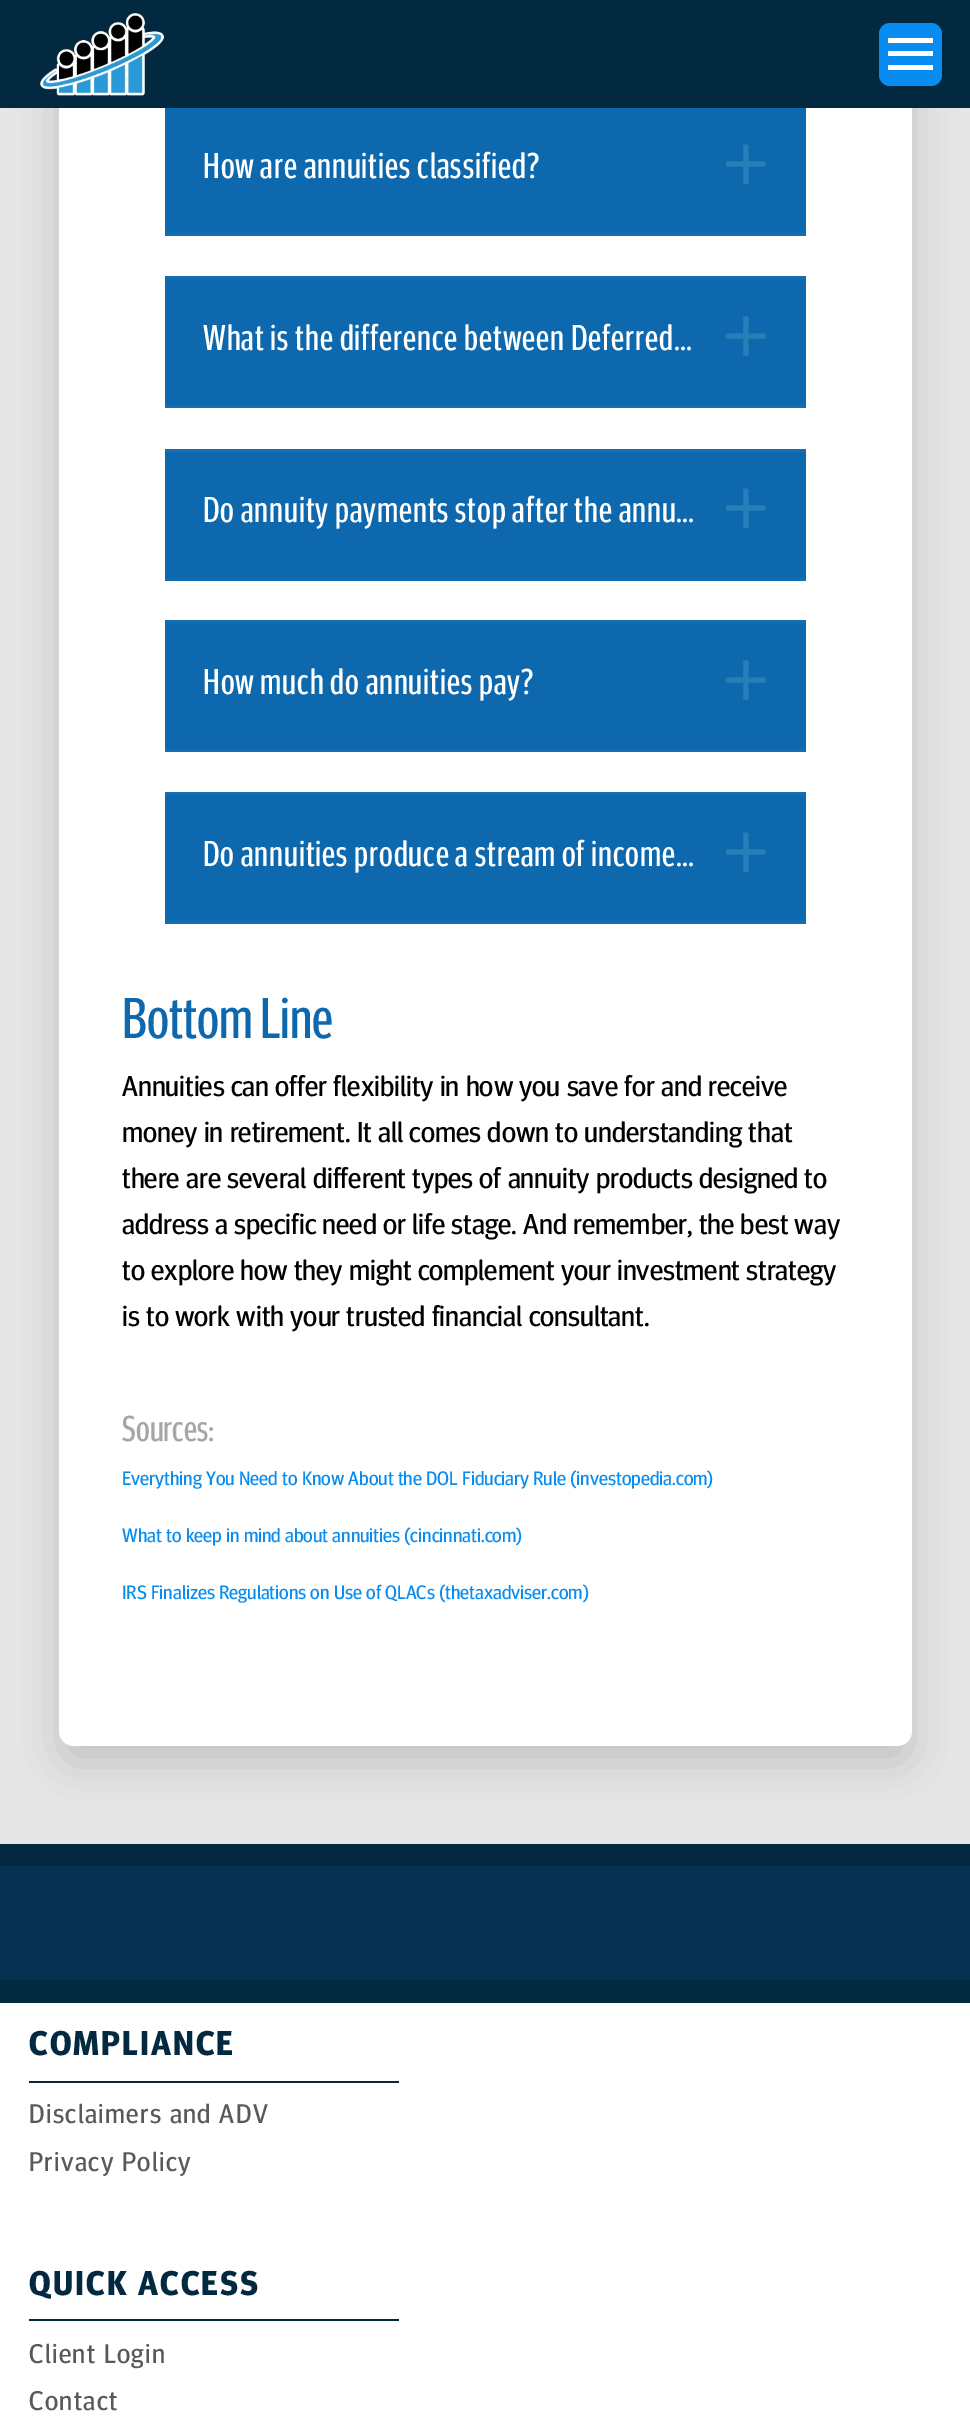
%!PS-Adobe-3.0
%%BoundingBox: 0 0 970 2427
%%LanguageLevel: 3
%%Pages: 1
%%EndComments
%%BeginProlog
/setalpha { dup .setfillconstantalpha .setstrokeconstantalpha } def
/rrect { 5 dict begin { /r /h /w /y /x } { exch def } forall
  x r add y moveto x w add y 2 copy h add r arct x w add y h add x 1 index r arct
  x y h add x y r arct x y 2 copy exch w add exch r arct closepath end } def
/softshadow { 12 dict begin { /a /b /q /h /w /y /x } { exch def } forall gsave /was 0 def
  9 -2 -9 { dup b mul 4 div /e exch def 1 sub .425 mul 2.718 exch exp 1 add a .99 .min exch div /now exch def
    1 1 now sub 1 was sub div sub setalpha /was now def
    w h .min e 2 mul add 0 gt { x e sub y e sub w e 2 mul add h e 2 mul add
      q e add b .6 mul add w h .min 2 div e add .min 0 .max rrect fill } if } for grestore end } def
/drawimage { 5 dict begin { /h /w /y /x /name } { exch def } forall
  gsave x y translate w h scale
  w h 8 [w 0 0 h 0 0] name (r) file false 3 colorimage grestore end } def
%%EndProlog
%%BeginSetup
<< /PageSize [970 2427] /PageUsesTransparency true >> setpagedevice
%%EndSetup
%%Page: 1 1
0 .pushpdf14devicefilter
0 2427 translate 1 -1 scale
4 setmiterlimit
1 setgray
0 0 970 2427 rectfill
0.902 setgray
0 108 970 1736 rectfill
0 setgray
59 -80 853 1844 15 21.5 0.15 softshadow
1 setgray
59 -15 853 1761 15 rrect fill
0.012 0.161 0.251 setrgbcolor
0 0 970 108 rectfill
(images/1.raw) 40 13 124 83 drawimage
0.035 0.549 0.941 setrgbcolor
879 23 63 63 11 rrect fill
1 setgray
888 38 45 5 rectfill
888 51 45 5 rectfill
888 65 45 5 rectfill
0.051 0.408 0.682 setrgbcolor
165 108 641 125 rectfill
0.078 0.431 0.694 setrgbcolor
165 233 641 3 rectfill
0.051 0.408 0.682 setrgbcolor
165 279 641 126 rectfill
0.078 0.431 0.694 setrgbcolor
165 276 641 3 rectfill
165 405 641 3 rectfill
0.051 0.408 0.682 setrgbcolor
165 452 641 126 rectfill
0.078 0.431 0.694 setrgbcolor
165 449 641 3 rectfill
165 578 641 3 rectfill
0.051 0.408 0.682 setrgbcolor
165 623 641 126 rectfill
0.078 0.431 0.694 setrgbcolor
165 620 641 3 rectfill
165 749 641 3 rectfill
0.051 0.408 0.682 setrgbcolor
165 795 641 126 rectfill
0.078 0.431 0.694 setrgbcolor
165 792 641 3 rectfill
165 921 641 3 rectfill
0.024 0.192 0.322 setrgbcolor
0 1866 970 114 rectfill
0.012 0.161 0.251 setrgbcolor
0 1844 970 22 rectfill
0 1980 970 23 rectfill
29 2081 370 2 rectfill
29 2319 370 2 rectfill
/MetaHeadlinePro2-Regular [36 0 0 -36 0 0] selectfont
1 setgray
203 178 moveto 0.9 0 (How are annuities classified?) ashow
/DejaVuSans-Regular [54 0 0 -54 0 0] selectfont
0.157 0.498 0.722 setrgbcolor
gsave 716 162 translate 45 rotate 0 0 moveto 0.9 0 (✕) ashow grestore
/MetaHeadlinePro2-Regular [36 0 0 -36 0 0] selectfont
1 setgray
203 350 moveto 0.9 0 (What is the difference between Deferred…) ashow
/DejaVuSans-Regular [54 0 0 -54 0 0] selectfont
0.157 0.498 0.722 setrgbcolor
gsave 716 334 translate 45 rotate 0 0 moveto 0.9 0 (✕) ashow grestore
/MetaHeadlinePro2-Regular [36 0 0 -36 0 0] selectfont
1 setgray
203 522 moveto 0.9 0 (Do annuity payments stop after the annu…) ashow
/DejaVuSans-Regular [54 0 0 -54 0 0] selectfont
0.157 0.498 0.722 setrgbcolor
gsave 716 506 translate 45 rotate 0 0 moveto 0.9 0 (✕) ashow grestore
/MetaHeadlinePro2-Regular [36 0 0 -36 0 0] selectfont
1 setgray
203 694 moveto 0.9 0 (How much do annuities pay?) ashow
/DejaVuSans-Regular [54 0 0 -54 0 0] selectfont
0.157 0.498 0.722 setrgbcolor
gsave 716 678 translate 45 rotate 0 0 moveto 0.9 0 (✕) ashow grestore
/MetaHeadlinePro2-Regular [36 0 0 -36 0 0] selectfont
1 setgray
203 866 moveto 0.9 0 (Do annuities produce a stream of income…) ashow
/DejaVuSans-Regular [54 0 0 -54 0 0] selectfont
0.157 0.498 0.722 setrgbcolor
gsave 716 850 translate 45 rotate 0 0 moveto 0.9 0 (✕) ashow grestore
/MetaHeadlinePro2-Regular [57.5 0 0 -57.5 0 0] selectfont
0.051 0.408 0.682 setrgbcolor
122 1038 moveto (Bottom Line) show
/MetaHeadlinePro-Regular [28.75 0 0 -28.75 0 0] selectfont
0 setgray
122 1096 moveto (Annuities can offer flexibility in how you save for and receive) show
122 1142 moveto (money in retirement. It all comes down to understanding that) show
122 1188 moveto (there are several different types of annuity products designed to) show
122 1234 moveto (address a specific need or life stage. And remember, the best way) show
122 1280 moveto (to explore how they might complement your investment strategy) show
122 1326 moveto (is to work with your trusted financial consultant.) show
/MetaHeadlinePro2-Regular [36 0 0 -36 0 0] selectfont
0.651 setgray
122 1441 moveto (Sources:) show
/MetaHeadlinePro-Regular [19.5 0 0 -19.5 0 0] selectfont
0.035 0.549 0.941 setrgbcolor
122 1485 moveto (Everything You Need to Know About the DOL Fiduciary Rule \(investopedia.com\)) show
122 1542 moveto (What to keep in mind about annuities \(cincinnati.com\)) show
122 1599 moveto (IRS Finalizes Regulations on Use of QLACs \(thetaxadviser.com\)) show
/MetaHeadlinePro-Bold [34.25 0 0 -34.25 0 0] selectfont
0.012 0.161 0.251 setrgbcolor
29 2055 moveto 2.1 0 (COMPLIANCE) ashow
/MetaHeadlinePro-Regular [27 0 0 -27 0 0] selectfont
0.349 setgray
29 2123 moveto 1.4 0 (Disclaimers and ADV) ashow
29 2171 moveto 1.4 0 (Privacy Policy) ashow
/MetaHeadlinePro-Bold [34.25 0 0 -34.25 0 0] selectfont
0.012 0.161 0.251 setrgbcolor
29 2295 moveto 2.1 0 (QUICK ACCESS) ashow
/MetaHeadlinePro-Regular [27 0 0 -27 0 0] selectfont
0.349 setgray
29 2363 moveto 1.4 0 (Client Login) ashow
29 2410 moveto 1.4 0 (Contact) ashow
.poppdf14devicefilter showpage
%%EOF
